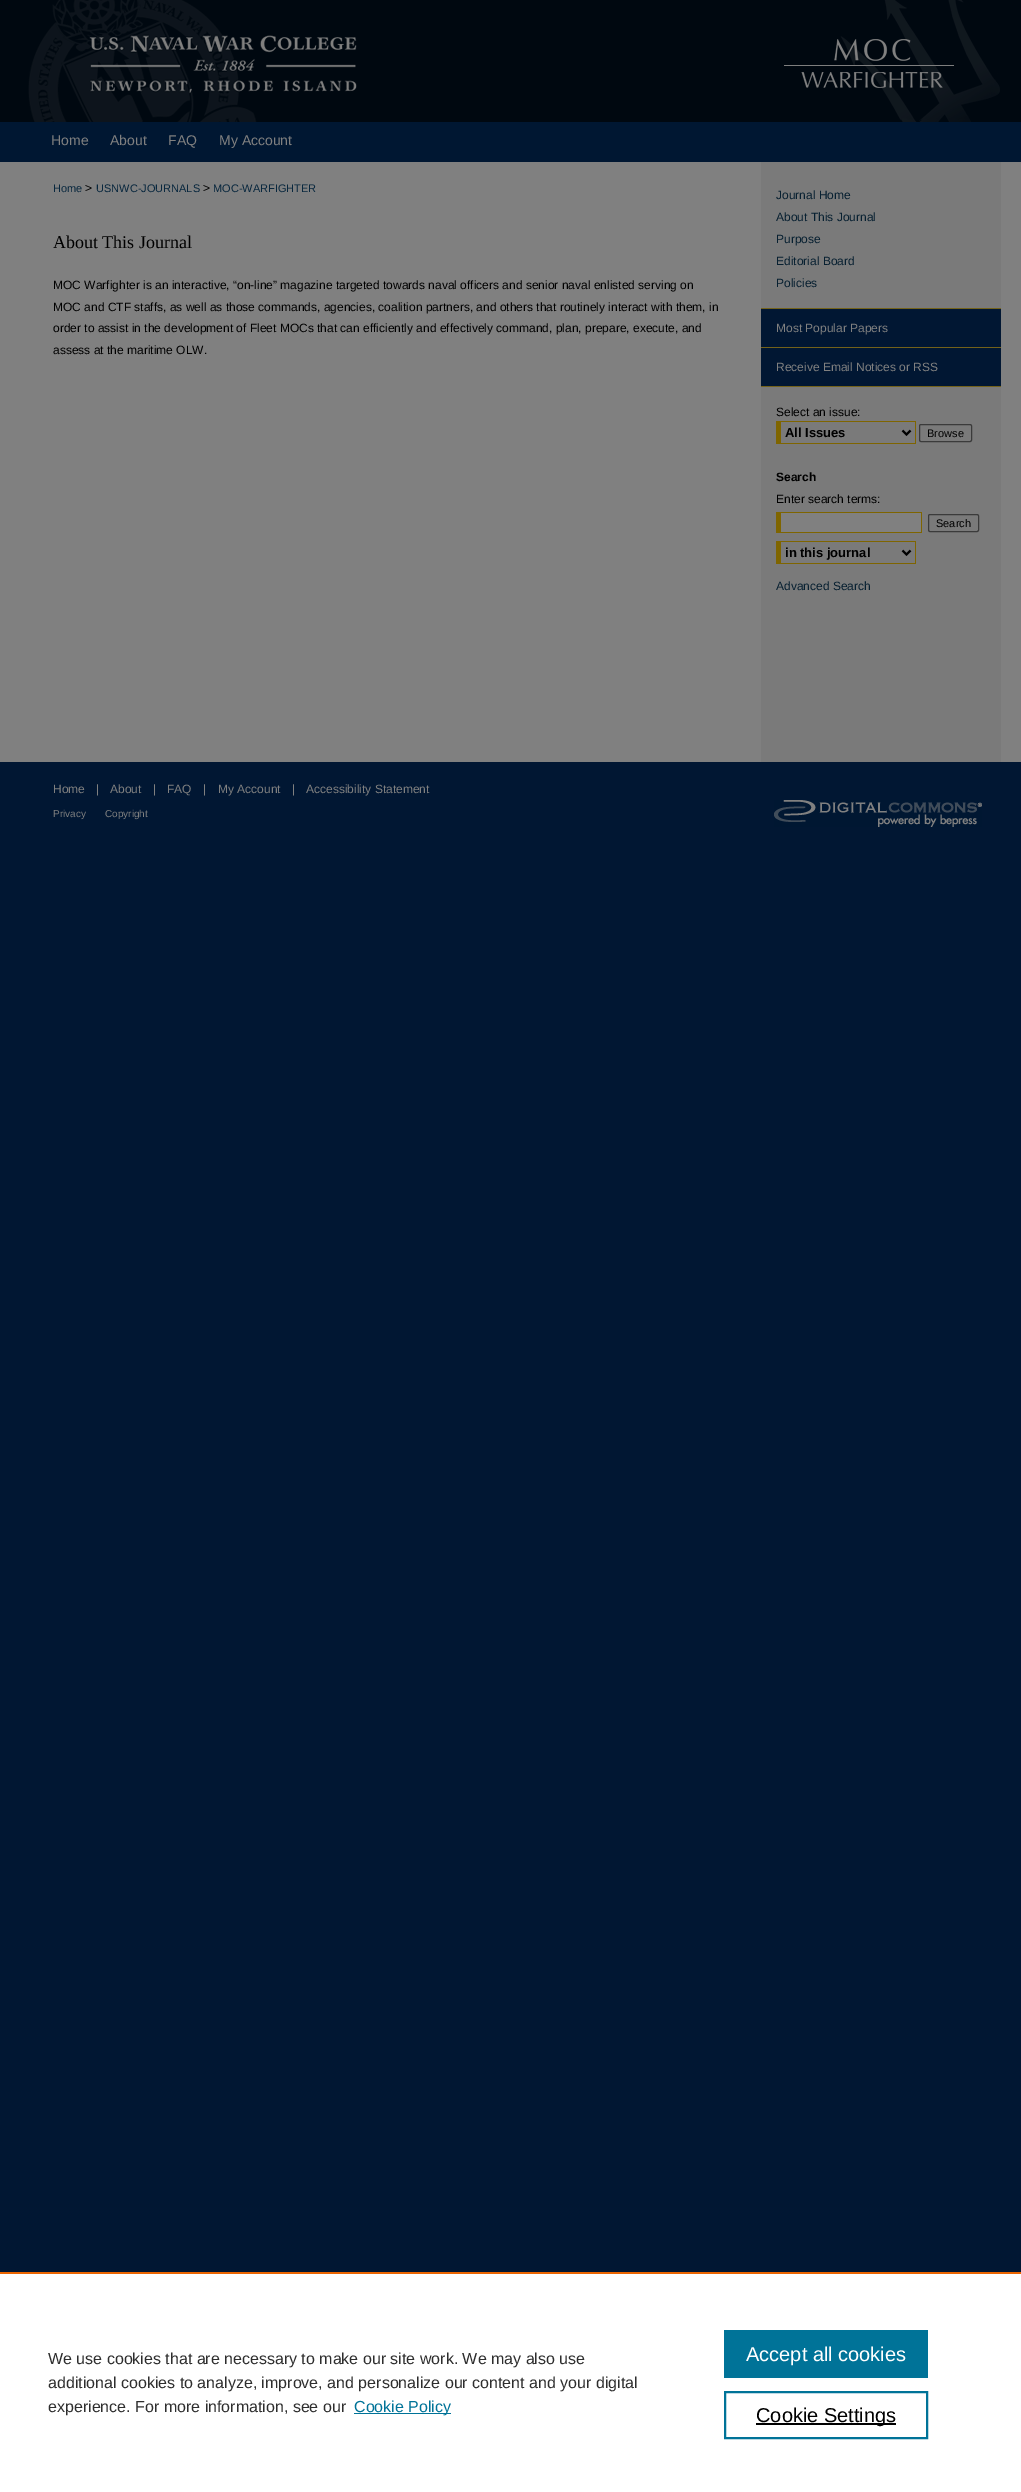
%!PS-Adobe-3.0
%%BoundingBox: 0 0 1021 2492
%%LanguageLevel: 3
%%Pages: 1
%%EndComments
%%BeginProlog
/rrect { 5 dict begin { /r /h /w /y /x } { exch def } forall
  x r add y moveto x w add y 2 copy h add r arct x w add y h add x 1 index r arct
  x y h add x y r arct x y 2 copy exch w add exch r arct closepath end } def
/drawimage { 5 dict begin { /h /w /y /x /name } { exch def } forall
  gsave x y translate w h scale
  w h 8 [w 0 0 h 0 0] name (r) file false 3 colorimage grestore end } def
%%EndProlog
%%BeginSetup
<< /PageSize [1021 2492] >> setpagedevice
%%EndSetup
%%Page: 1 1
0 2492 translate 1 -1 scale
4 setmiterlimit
0.004 0.09 0.2 setrgbcolor
0 0 1021 2492 rectfill
0.502 setgray
0 162 1021 600 rectfill
(images/1.raw) 0 0 1021 162 drawimage
(images/2.raw) 23 0 334 122 drawimage
(images/3.raw) 357 0 643 122 drawimage
0.478 setgray
761 162 240 600 rectfill
0.004 0.09 0.2 setrgbcolor
761 309 240 38 rectfill
0.451 0.384 0.102 setrgbcolor
761 308 240 1 rectfill
761 347 240 1 rectfill
0.004 0.09 0.2 setrgbcolor
761 348 240 38 rectfill
0.451 0.384 0.102 setrgbcolor
761 386 240 1 rectfill
0.498 0.396 0 setrgbcolor
776 421 140 1 rectfill
915 421 1 23 rectfill
776 443 140 1 rectfill
776 421 5 23 rectfill
0 setgray
2 setlinewidth
newpath 902.5 430.5 moveto 906.5 434.5 lineto 910.5 430.5 lineto stroke
0.231 setgray
1 setlinewidth
919.5 424.5 52 17 1.5 rrect stroke
0.502 setgray
781 513 140 19 rectfill
0.498 0.396 0 setrgbcolor
776 512 146 1 rectfill
921 512 1 21 rectfill
776 532 146 1 rectfill
776 512 5 21 rectfill
0.231 setgray
928.5 514.5 50 17 1.5 rrect stroke
0.498 0.396 0 setrgbcolor
776 541 140 1 rectfill
915 541 1 23 rectfill
776 563 140 1 rectfill
776 541 5 23 rectfill
0 setgray
2 setlinewidth
newpath 902.5 550.5 moveto 906.5 554.5 lineto 910.5 550.5 lineto stroke
(images/4.raw) 774 800 208 27 drawimage
1 setgray
0 2274 1021 218 rectfill
0.922 0.396 0 setrgbcolor
0 2272 1021 2 rectfill
0 0.451 0.596 setrgbcolor
354 2413 97 1 rectfill
724 2330 204 48 rectfill
725 2392 202 46 rectstroke
0 setgray
756 2423 140 2 rectfill
/LiberationSans-Regular [14 0 0 -14 0 0] selectfont
0.502 setgray
51 145 moveto (Home) show
110 145 moveto (About) show
168 145 moveto (FAQ) show
219 145 moveto (My Account) show
/LiberationSans-Regular [11 0 0 -11 0 0] selectfont
0.031 0.153 0.243 setrgbcolor
53 192 moveto (Home) show
/LiberationSans-Regular [12 0 0 -12 0 0] selectfont
0 setgray
85 192 moveto (>) show
/LiberationSans-Regular [11 0 0 -11 0 0] selectfont
0.031 0.153 0.243 setrgbcolor
96 192 moveto (USNWC-JOURNALS) show
/LiberationSans-Regular [12 0 0 -12 0 0] selectfont
0 setgray
203 192 moveto (>) show
/LiberationSans-Regular [11 0 0 -11 0 0] selectfont
0.031 0.153 0.243 setrgbcolor
213 192 moveto (MOC-WARFIGHTER) show
/LiberationSerif-Regular [18 0 0 -18 0 0] selectfont
0 setgray
53 248 moveto (About This Journal) show
/LiberationSans-Regular [12 0 0 -12 0 0] selectfont
53 289 moveto (MOC Warfighter is an interactive, “on-line” magazine targeted towards naval officers and senior naval enlisted serving on) show
53 311 moveto (MOC and CTF staffs, as well as those commands, agencies, coalition partners, and others that routinely interact with them, in) show
53 332 moveto (order to assist in the development of Fleet MOCs that can efficiently and effectively command, plan, prepare, execute, and) show
53 354 moveto (assess at the maritime OLW.) show
0.027 0.125 0.192 setrgbcolor
776 199 moveto (Journal Home) show
776 221 moveto (About This Journal) show
776 243 moveto (Purpose) show
776 265 moveto (Editorial Board) show
776 287 moveto (Policies) show
0.502 setgray
776 332 moveto (Most Popular Papers) show
776 371 moveto (Receive Email Notices or RSS) show
0 setgray
776 416 moveto (Select an issue:) show
/LiberationSans-Bold [13 0 0 -13 0 0] selectfont
785 437 moveto (All Issues) show
/LiberationSans-Regular [11 0 0 -11 0 0] selectfont
927 437 moveto (Browse) show
/LiberationSans-Bold [12 0 0 -12 0 0] selectfont
776 481 moveto (Search) show
/LiberationSans-Regular [12 0 0 -12 0 0] selectfont
776 503 moveto (Enter search terms:) show
/LiberationSans-Regular [11 0 0 -11 0 0] selectfont
936 527 moveto (Search) show
/LiberationSans-Bold [13 0 0 -13 0 0] selectfont
785 557 moveto (in this journal) show
/LiberationSans-Regular [12 0 0 -12 0 0] selectfont
0.027 0.125 0.192 setrgbcolor
776 590 moveto (Advanced Search) show
0.502 setgray
53 793 moveto (Home) show
96 793 moveto (|) show
110 793 moveto (About) show
153 793 moveto (|) show
167 793 moveto (FAQ) show
203 793 moveto (|) show
218 793 moveto (My Account) show
292 793 moveto (|) show
306 793 moveto (Accessibility Statement) show
/LiberationSans-Regular [10 0 0 -10 0 0] selectfont
53 817 moveto (Privacy) show
105 817 moveto (Copyright) show
/LiberationSans-Regular [16 0 0 -16 0 0] selectfont
0.18 setgray
48 2364 moveto (We use cookies that are necessary to make our site work. We may also use) show
48 2388 moveto (additional cookies to analyze, improve, and personalize our content and your digital) show
48 2412 moveto (experience. For more information, see our) show
0 0.451 0.596 setrgbcolor
354 2412 moveto (Cookie Policy) show
/LiberationSans-Regular [20 0 0 -20 0 0] selectfont
1 setgray
746 2361 moveto (Accept all cookies) show
0 setgray
756 2422 moveto (Cookie Settings) show
showpage
%%EOF
